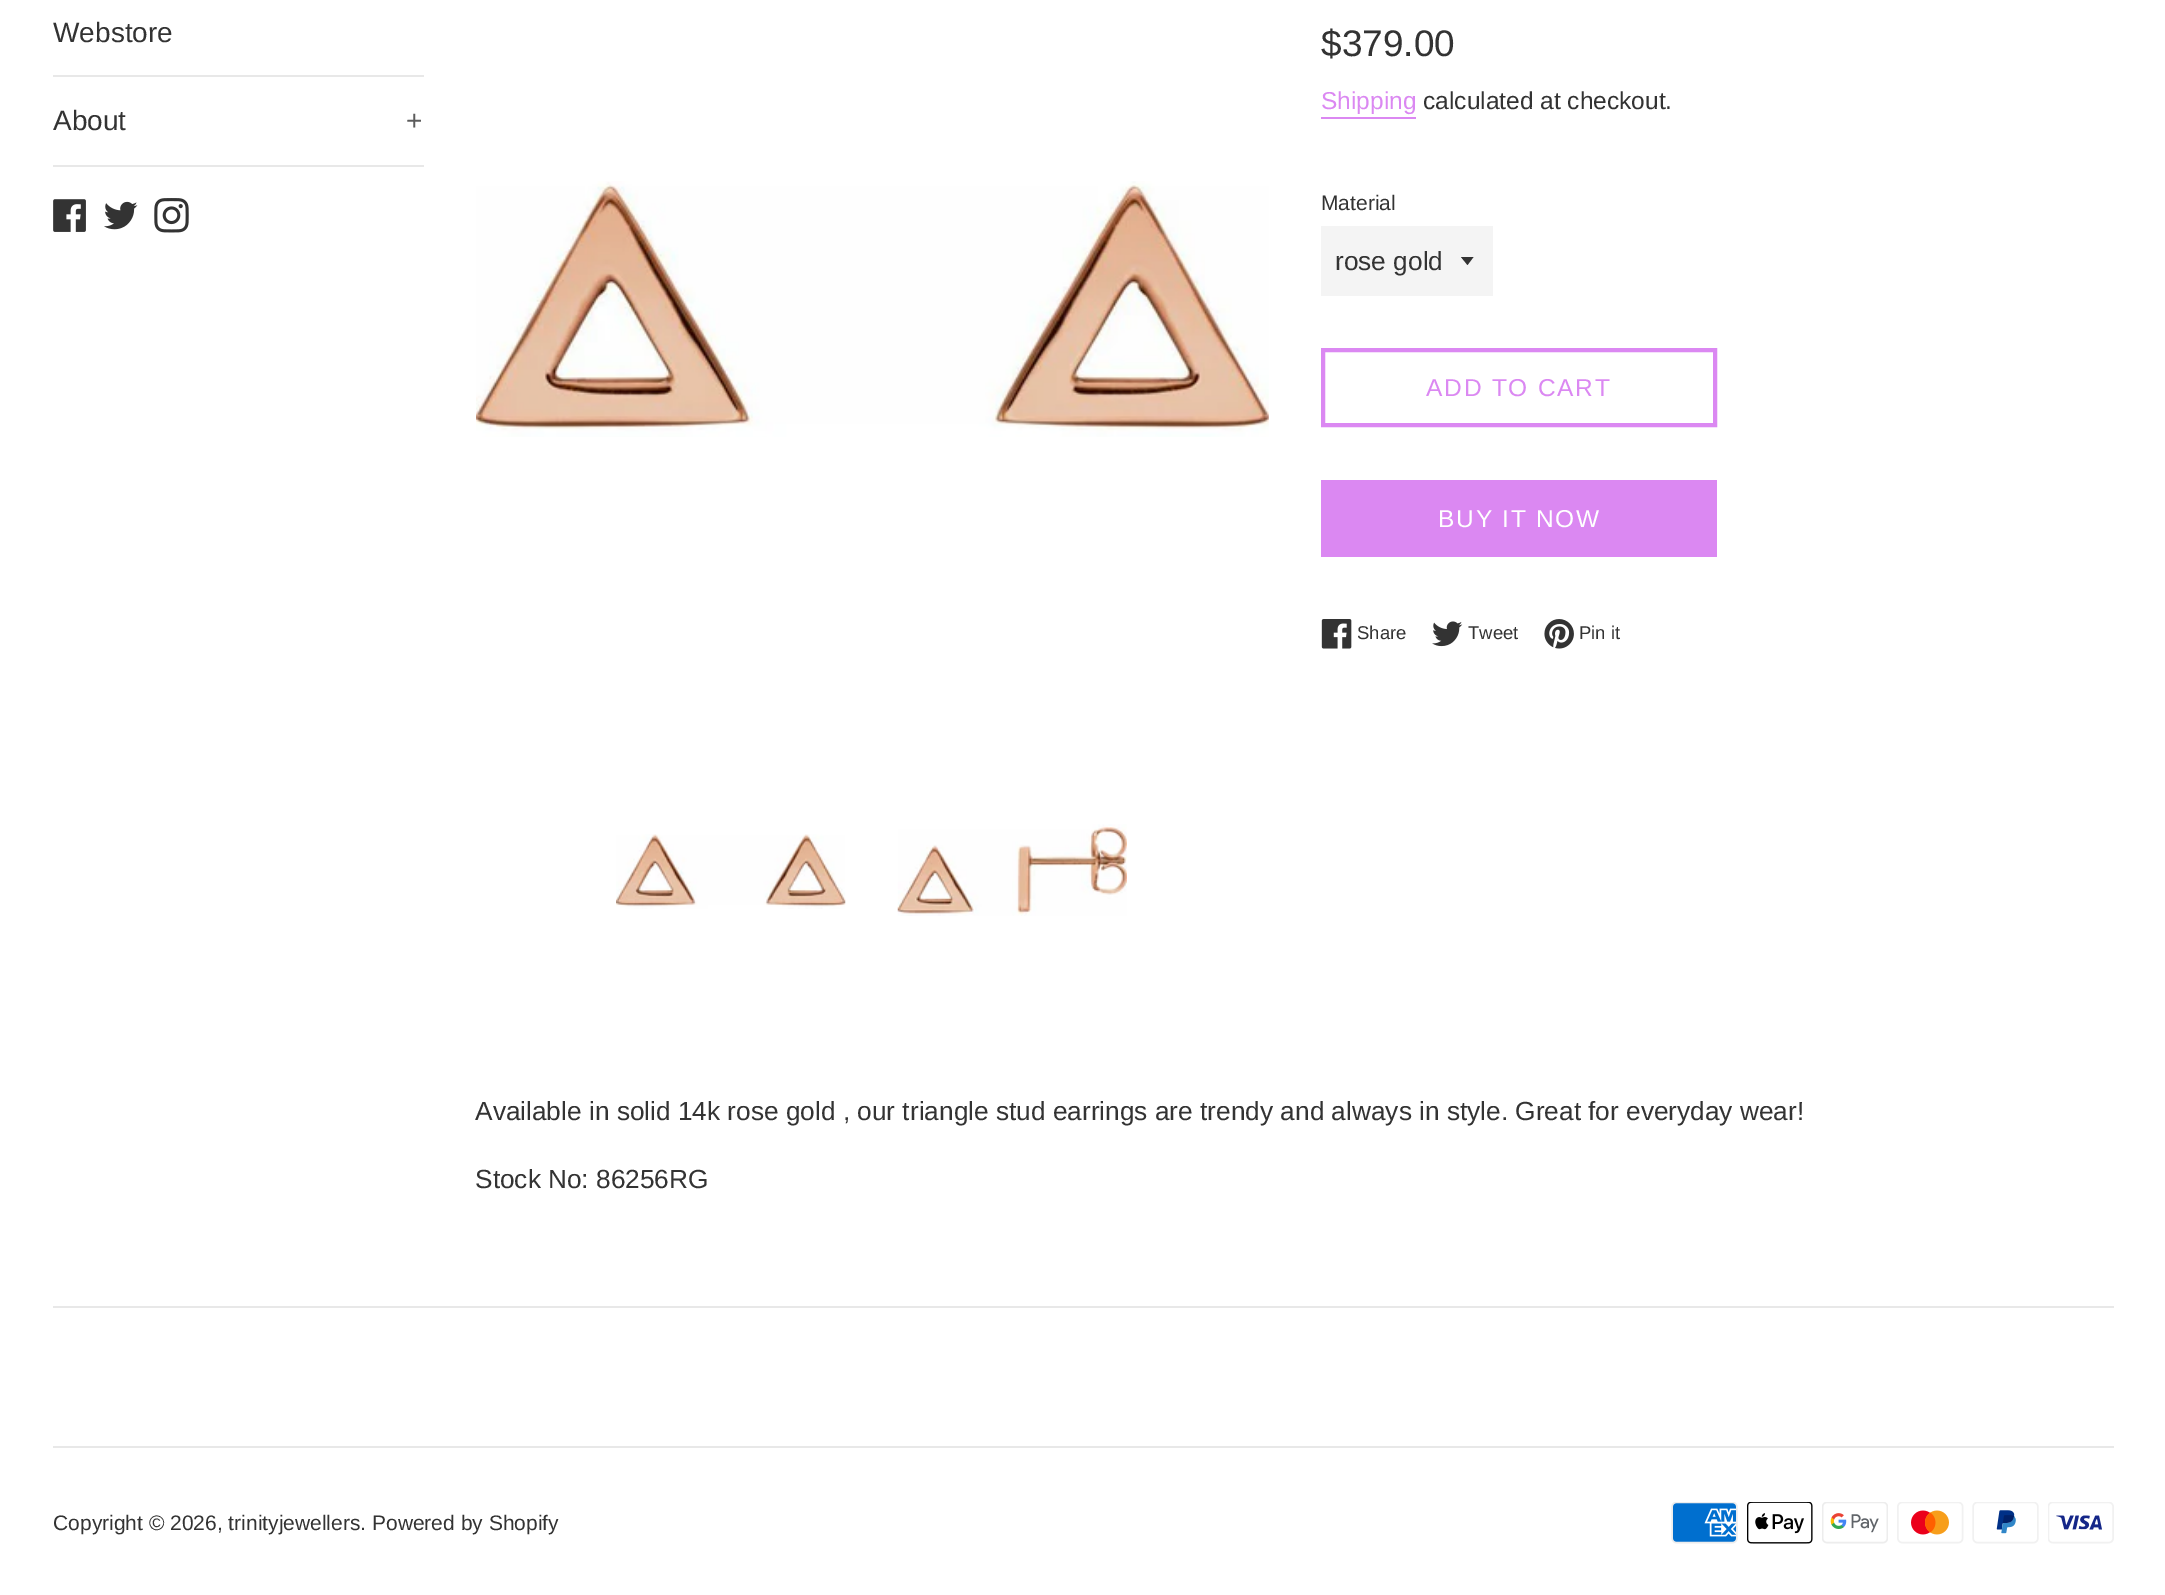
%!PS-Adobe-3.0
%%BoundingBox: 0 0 2165 1595
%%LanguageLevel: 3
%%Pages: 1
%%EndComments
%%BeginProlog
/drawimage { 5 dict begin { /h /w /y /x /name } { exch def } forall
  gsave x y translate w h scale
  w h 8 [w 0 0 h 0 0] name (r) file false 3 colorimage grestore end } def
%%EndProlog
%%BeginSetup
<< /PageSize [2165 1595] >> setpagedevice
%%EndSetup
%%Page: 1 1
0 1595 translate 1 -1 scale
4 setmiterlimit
1 setgray
0 0 2165 1595 rectfill
0.91 setgray
53 75 371 2 rectfill
53 165 371 2 rectfill
(images/1.raw) 53 199 33 33 drawimage
(images/2.raw) 104 201 34 29 drawimage
(images/3.raw) 154 198 35 35 drawimage
(images/4.raw) 476 181 793 256 drawimage
(images/5.raw) 616 834 230 75 drawimage
(images/6.raw) 897 824 230 92 drawimage
0.859 0.533 0.949 setrgbcolor
1321 117 95 2 rectfill
0.957 setgray
1321 226 172 70 rectfill
0.2 setgray
newpath 1461 257 moveto 1467.5 265 lineto 1473.5 257 lineto closepath fill
0.859 0.533 0.949 setrgbcolor
4 setlinewidth
1323 350 392 75 rectstroke
1321 480 396 77 rectfill
(images/7.raw) 1321 619 31 30 drawimage
(images/8.raw) 1432 621 31 26 drawimage
(images/9.raw) 1544 619 30 30 drawimage
0.91 setgray
53 1306 2061 2 rectfill
53 1446 2061 2 rectfill
(images/10.raw) 1671 1502 67 42 drawimage
(images/11.raw) 1747 1502 66 42 drawimage
(images/12.raw) 1822 1502 66 42 drawimage
(images/13.raw) 1897 1502 67 42 drawimage
(images/14.raw) 1972 1502 67 42 drawimage
(images/15.raw) 2048 1502 66 42 drawimage
/LiberationSans-Regular [28 0 0 -28 0 0] selectfont
0.2 setgray
53 42 moveto (Webstore) show
53 130 moveto (About) show
0.361 setgray
406 130 moveto (+) show
/LiberationSans-Regular [37 0 0 -37 0 0] selectfont
0.2 setgray
1321 56 moveto ($379.00) show
/LiberationSans-Regular [24.5 0 0 -24.5 0 0] selectfont
0.859 0.533 0.949 setrgbcolor
1321 109 moveto (Shipping) show
0.2 setgray
1423 109 moveto (calculated at checkout.) show
/LiberationSans-Regular [21 0 0 -21 0 0] selectfont
1321 210 moveto (Material) show
/LiberationSans-Regular [26.25 0 0 -26.25 0 0] selectfont
1335 270 moveto (rose gold) show
/LiberationSans-Regular [24.5 0 0 -24.5 0 0] selectfont
0.859 0.533 0.949 setrgbcolor
1426 396 moveto 1.75 0 (ADD TO CART) ashow
1 setgray
1438 527 moveto 1.75 0 (BUY IT NOW) ashow
/LiberationSans-Regular [18.5 0 0 -18.5 0 0] selectfont
0.2 setgray
1357 639 moveto (Share) show
1468 639 moveto (Tweet) show
1579 639 moveto (Pin it) show
/LiberationSans-Regular [26.25 0 0 -26.25 0 0] selectfont
475 1120 moveto (Available in solid 14k rose gold , our triangle stud earrings are trendy and always in style. Great for everyday wear!) show
475 1188 moveto (Stock No: 86256RG) show
/LiberationSans-Regular [21 0 0 -21 0 0] selectfont
53 1530 moveto (Copyright © 2026, trinityjewellers. Powered by Shopify) show
showpage
%%EOF
